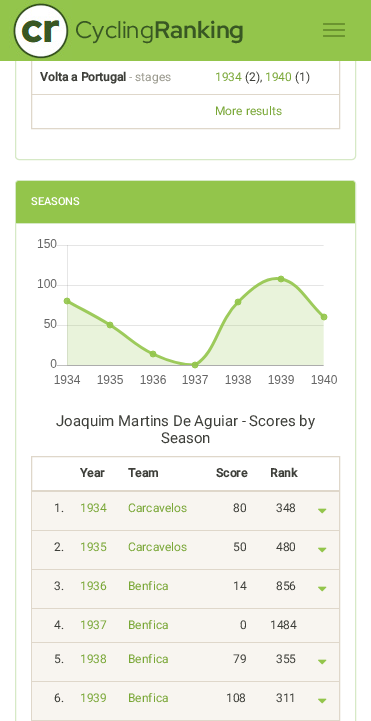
%!PS-Adobe-3.0
%%BoundingBox: 0 0 371 721
%%LanguageLevel: 3
%%Pages: 1
%%EndComments
%%BeginProlog
/rrect { 5 dict begin { /r /h /w /y /x } { exch def } forall
  x r add y moveto x w add y 2 copy h add r arct x w add y h add x 1 index r arct
  x y h add x y r arct x y 2 copy exch w add exch r arct closepath end } def
/drawimage { 5 dict begin { /h /w /y /x /name } { exch def } forall
  gsave x y translate w h scale
  w h 8 [w 0 0 h 0 0] name (r) file false 3 colorimage grestore end } def
%%EndProlog
%%BeginSetup
<< /PageSize [371 721] >> setpagedevice
%%EndSetup
%%Page: 1 1
0 721 translate 1 -1 scale
4 setmiterlimit
1 setgray
0 0 371 721 rectfill
0.839 0.914 0.776 setrgbcolor
15.5 0.5 340 159 3.5 rrect stroke
0.875 0.843 0.792 setrgbcolor
31.5 59.5 308 69 rectstroke
0.576 0.773 0.294 setrgbcolor
0 0 371 61 rectfill
(images/1.raw) 9 0 63 60 drawimage
0.42 0.58 0.188 setrgbcolor
323 23 22 2 1 rrect fill
323 29 22 2 1 rrect fill
323 35 22 2 1 rrect fill
0.875 0.843 0.792 setrgbcolor
32 94 307 1 rectfill
0.839 0.914 0.776 setrgbcolor
15.5 180.5 340 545 3.5 rrect stroke
0.576 0.773 0.294 setrgbcolor
newpath 19 181 moveto 352 181 lineto 353.5 181 355 182.5 355 184 curveto 355 224 lineto 16 224 lineto 16 184 lineto 16 182.5 17.5 181 19 181 curveto closepath fill
0.839 0.914 0.776 setrgbcolor
16 223 339 1 rectfill
(images/2.raw) 37 239 300 145 drawimage
0.875 0.843 0.792 setrgbcolor
31.5 456.5 308 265 rectstroke
32 490 307 2 rectfill
0.973 0.961 0.941 setrgbcolor
32 492 307 38 rectfill
(images/3.raw) 318 508 9 6 drawimage
0.875 0.843 0.792 setrgbcolor
32 530 307 1 rectfill
0.973 0.961 0.941 setrgbcolor
32 531 307 38 rectfill
(images/3.raw) 318 547 9 6 drawimage
0.875 0.843 0.792 setrgbcolor
32 569 307 1 rectfill
0.973 0.961 0.941 setrgbcolor
32 570 307 38 rectfill
(images/3.raw) 318 586 9 6 drawimage
0.875 0.843 0.792 setrgbcolor
32 608 307 1 rectfill
0.973 0.961 0.941 setrgbcolor
32 609 307 33 rectfill
0.875 0.843 0.792 setrgbcolor
32 642 307 1 rectfill
0.973 0.961 0.941 setrgbcolor
32 643 307 38 rectfill
(images/3.raw) 318 659 9 6 drawimage
0.875 0.843 0.792 setrgbcolor
32 681 307 1 rectfill
0.973 0.961 0.941 setrgbcolor
32 682 307 38 rectfill
(images/3.raw) 318 698 9 6 drawimage
0.875 0.843 0.792 setrgbcolor
32 720 307 1 rectfill
/RedHatDisplay-Regular [24 0 0 -24 0 0] selectfont
0.22 0.341 0.137 setrgbcolor
75 38 moveto (Cycling) show
/RedHatDisplay-Bold [24 0 0 -24 0 0] selectfont
154 38 moveto (Ranking) show
/Roboto-Bold [12 0 0 -12 0 0] selectfont
0.243 0.247 0.227 setrgbcolor
40 81 moveto (Volta a Portugal) show
/Roboto-Regular [12 0 0 -12 0 0] selectfont
0.596 0.592 0.545 setrgbcolor
129 81 moveto (- stages) show
0.475 0.655 0.212 setrgbcolor
215 81 moveto (1934) show
0.243 0.247 0.227 setrgbcolor
245 81 moveto (\(2\),) show
0.475 0.655 0.212 setrgbcolor
265 81 moveto (1940) show
0.243 0.247 0.227 setrgbcolor
295 81 moveto (\(1\)) show
0.475 0.655 0.212 setrgbcolor
215 115 moveto (More results) show
/Roboto-Medium [11 0 0 -11 0 0] selectfont
1 setgray
31 205 moveto (SEASONS) show
/Roboto-Regular [15 0 0 -15 0 0] selectfont
0.243 0.247 0.227 setrgbcolor
56 426 moveto (Joaquim Martins De Aguiar - Scores by) show
161 443 moveto (Season) show
/Roboto-Bold [12 0 0 -12 0 0] selectfont
80 477 moveto (Year) show
128 477 moveto (Team) show
216 477 moveto (Score) show
270 477 moveto (Rank) show
/Roboto-Regular [12 0 0 -12 0 0] selectfont
54 512 moveto (1.) show
0.475 0.655 0.212 setrgbcolor
80 512 moveto (1934) show
128 512 moveto (Carcavelos) show
0.243 0.247 0.227 setrgbcolor
233 512 moveto (80) show
276 512 moveto (348) show
54 551 moveto (2.) show
0.475 0.655 0.212 setrgbcolor
80 551 moveto (1935) show
128 551 moveto (Carcavelos) show
0.243 0.247 0.227 setrgbcolor
233 551 moveto (50) show
276 551 moveto (480) show
54 590 moveto (3.) show
0.475 0.655 0.212 setrgbcolor
80 590 moveto (1936) show
128 590 moveto (Benfica) show
0.243 0.247 0.227 setrgbcolor
233 590 moveto (14) show
276 590 moveto (856) show
54 629 moveto (4.) show
0.475 0.655 0.212 setrgbcolor
80 629 moveto (1937) show
128 629 moveto (Benfica) show
0.243 0.247 0.227 setrgbcolor
240 629 moveto (0) show
270 629 moveto (1484) show
54 663 moveto (5.) show
0.475 0.655 0.212 setrgbcolor
80 663 moveto (1938) show
128 663 moveto (Benfica) show
0.243 0.247 0.227 setrgbcolor
233 663 moveto (79) show
276 663 moveto (355) show
54 702 moveto (6.) show
0.475 0.655 0.212 setrgbcolor
80 702 moveto (1939) show
128 702 moveto (Benfica) show
0.243 0.247 0.227 setrgbcolor
226 702 moveto (108) show
276 702 moveto (311) show
showpage
%%EOF
